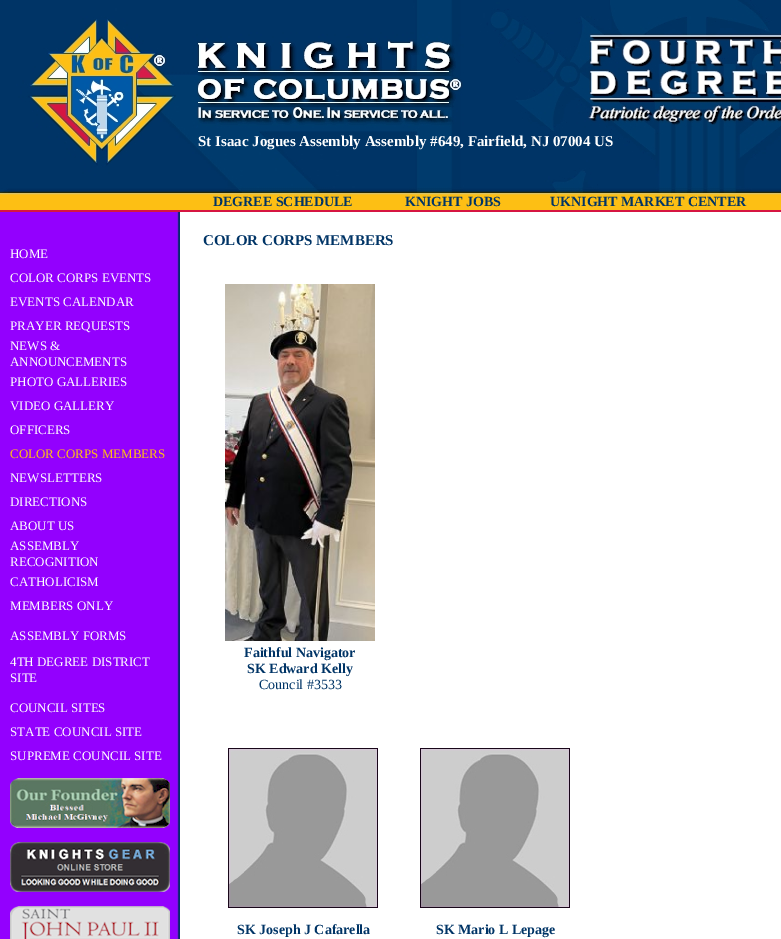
%!PS-Adobe-3.0
%%BoundingBox: 0 0 781 939
%%LanguageLevel: 3
%%Pages: 1
%%EndComments
%%BeginProlog
/drawimage { 5 dict begin { /h /w /y /x /name } { exch def } forall
  gsave x y translate w h scale
  w h 8 [w 0 0 h 0 0] name (r) file false 3 colorimage grestore end } def
%%EndProlog
%%BeginSetup
<< /PageSize [781 939] >> setpagedevice
%%EndSetup
%%Page: 1 1
0 939 translate 1 -1 scale
4 setmiterlimit
1 setgray
0 0 781 939 rectfill
(images/1.raw) 0 0 781 210 drawimage
0.839 0.082 0.255 setrgbcolor
0 210 781 2 rectfill
(images/2.raw) 0 212 180 727 drawimage
(images/3.raw) 10 778 160 50 drawimage
(images/4.raw) 10 842 160 50 drawimage
(images/5.raw) 10 906 160 33 drawimage
(images/6.raw) 225 284 150 357 drawimage
(images/7.raw) 228 748 150 160 drawimage
(images/7.raw) 420 748 150 160 drawimage
/LiberationSerif-Bold [15 0 0 -15 0 0] selectfont
1 setgray
198 146 moveto (St Isaac Jogues Assembly Assembly #649, Fairfield, NJ 07004 US) show
/LiberationSerif-Bold [14 0 0 -14 0 0] selectfont
0 0.204 0.4 setrgbcolor
213 206 moveto (DEGREE SCHEDULE) show
405 206 moveto (KNIGHT JOBS) show
550 206 moveto (UKNIGHT MARKET CENTER) show
/LiberationSerif-Regular [13 0 0 -13 0 0] selectfont
1 setgray
10 258 moveto (HOME) show
10 282 moveto (COLOR CORPS EVENTS) show
10 306 moveto (EVENTS CALENDAR) show
10 330 moveto (PRAYER REQUESTS) show
10 350 moveto (NEWS &) show
10 366 moveto (ANNOUNCEMENTS) show
10 386 moveto (PHOTO GALLERIES) show
10 410 moveto (VIDEO GALLERY) show
10 434 moveto (OFFICERS) show
0.996 0.749 0.082 setrgbcolor
10 458 moveto (COLOR CORPS MEMBERS) show
1 setgray
10 482 moveto (NEWSLETTERS) show
10 506 moveto (DIRECTIONS) show
10 530 moveto (ABOUT US) show
10 550 moveto (ASSEMBLY) show
10 566 moveto (RECOGNITION) show
10 586 moveto (CATHOLICISM) show
10 610 moveto (MEMBERS ONLY) show
10 640 moveto (ASSEMBLY FORMS) show
10 666 moveto (4TH DEGREE DISTRICT) show
10 682 moveto (SITE) show
10 712 moveto (COUNCIL SITES) show
10 736 moveto (STATE COUNCIL SITE) show
10 760 moveto (SUPREME COUNCIL SITE) show
/LiberationSerif-Bold [15 0 0 -15 0 0] selectfont
0 0.204 0.4 setrgbcolor
203 245 moveto (COLOR CORPS MEMBERS) show
/LiberationSerif-Bold [14 0 0 -14 0 0] selectfont
244 657 moveto (Faithful Navigator) show
247 673 moveto (SK Edward Kelly) show
/LiberationSerif-Regular [14 0 0 -14 0 0] selectfont
259 689 moveto (Council #3533) show
/LiberationSerif-Bold [14 0 0 -14 0 0] selectfont
237 934 moveto (SK Joseph J Cafarella) show
436 934 moveto (SK Mario L Lepage) show
showpage
%%EOF
